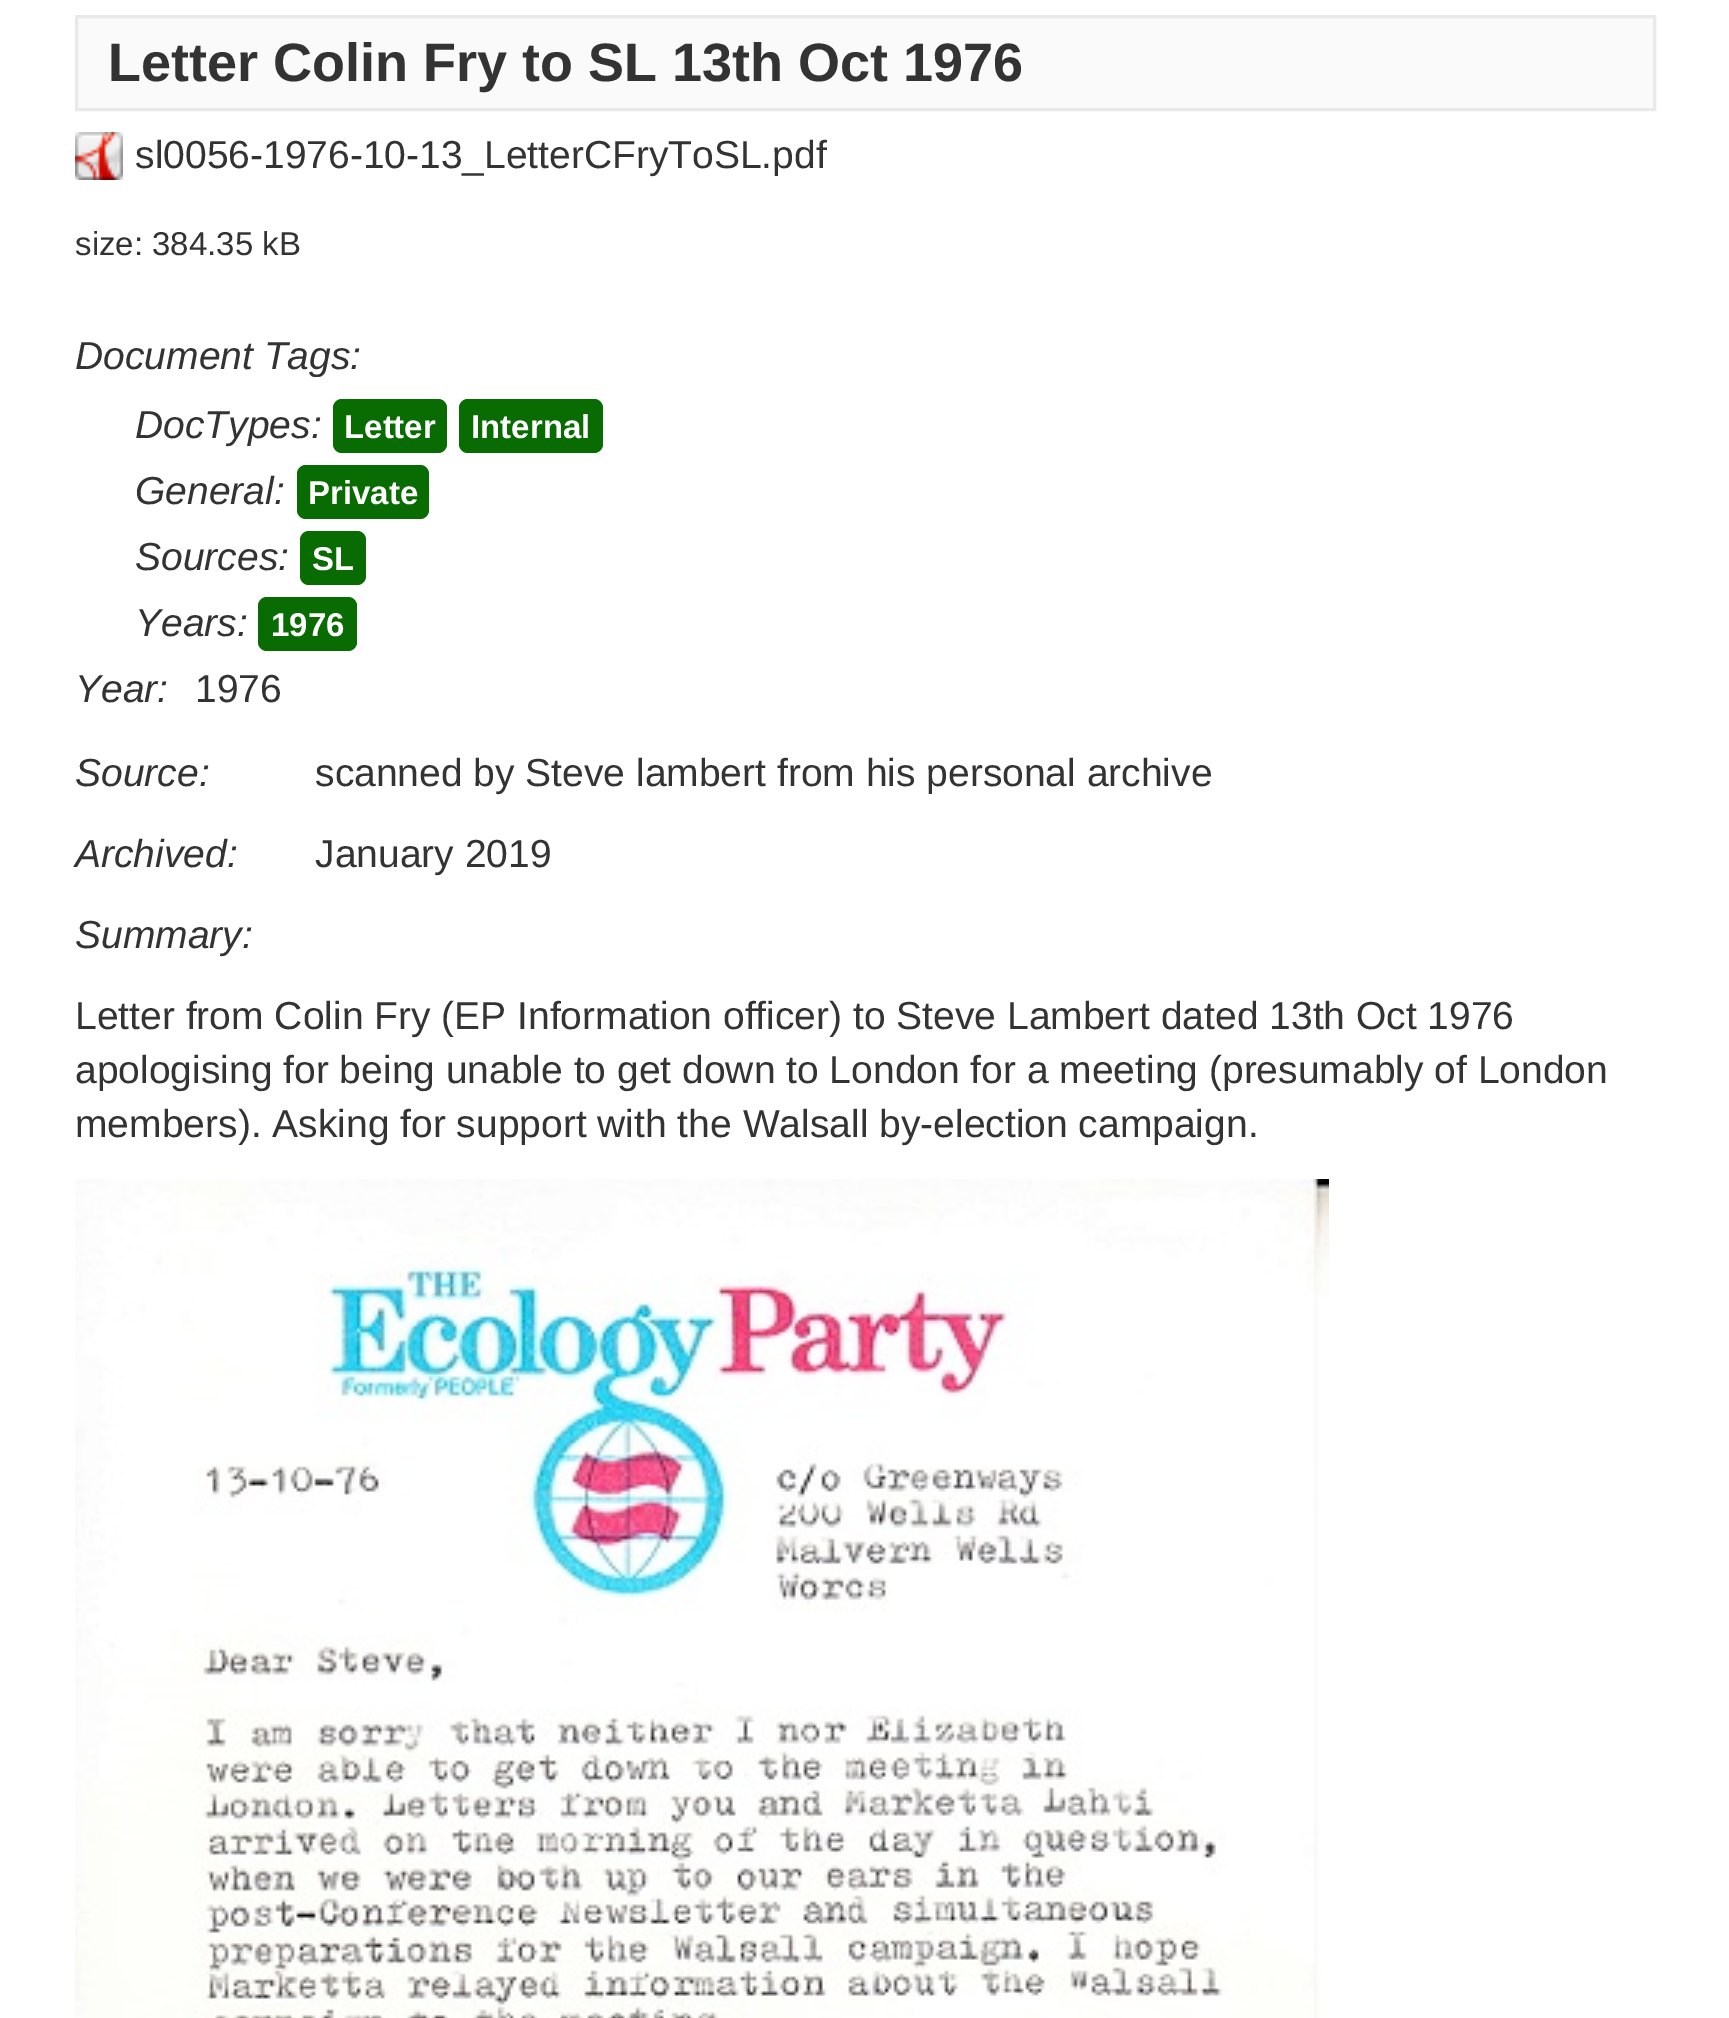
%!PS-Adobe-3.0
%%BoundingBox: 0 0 1729 2018
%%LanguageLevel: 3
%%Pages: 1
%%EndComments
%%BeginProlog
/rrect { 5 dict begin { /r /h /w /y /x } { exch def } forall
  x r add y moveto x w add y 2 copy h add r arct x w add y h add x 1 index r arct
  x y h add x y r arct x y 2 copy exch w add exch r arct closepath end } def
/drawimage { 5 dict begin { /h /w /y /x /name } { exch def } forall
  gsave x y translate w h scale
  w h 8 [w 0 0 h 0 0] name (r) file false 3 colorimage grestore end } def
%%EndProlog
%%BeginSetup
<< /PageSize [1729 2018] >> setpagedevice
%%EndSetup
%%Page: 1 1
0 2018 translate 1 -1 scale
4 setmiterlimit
1 setgray
0 0 1729 2018 rectfill
0.98 setgray
newpath 76.5 16.5 moveto 1654.5 16.5 lineto 1654.5 109.5 lineto 76.5 109.5 lineto closepath gsave fill grestore
0.914 setgray
3 setlinewidth
stroke
(images/1.raw) 75 132 48 48 drawimage
0.031 0.424 0.008 setrgbcolor
333 399 114 54 9 rrect fill
459 399 144 54 9 rrect fill
297 465 132 54 9 rrect fill
300 531 66 54 9 rrect fill
258 597 99 54 9 rrect fill
(images/2.raw) 75 1179 1254 839 drawimage
/LiberationSans-Bold [54 0 0 -54 0 0] selectfont
0.2 setgray
108 81 moveto (Letter Colin Fry to SL 13th Oct 1976) show
/LiberationSans-Regular [39 0 0 -39 0 0] selectfont
135 168 moveto (sl0056-1976-10-13_LetterCFryToSL.pdf) show
/LiberationSans-Regular [33 0 0 -33 0 0] selectfont
75 255 moveto (size: 384.35 kB) show
/LiberationSans-Italic [39 0 0 -39 0 0] selectfont
75 369 moveto (Document Tags:) show
135 438 moveto (DocTypes:) show
/LiberationSans-Bold [33 0 0 -33 0 0] selectfont
1 setgray
344 438 moveto (Letter) show
471 438 moveto (Internal) show
/LiberationSans-Italic [39 0 0 -39 0 0] selectfont
0.2 setgray
135 504 moveto (General:) show
/LiberationSans-Bold [33 0 0 -33 0 0] selectfont
1 setgray
308 504 moveto (Private) show
/LiberationSans-Italic [39 0 0 -39 0 0] selectfont
0.2 setgray
135 570 moveto (Sources:) show
/LiberationSans-Bold [33 0 0 -33 0 0] selectfont
1 setgray
312 570 moveto (SL) show
/LiberationSans-Italic [39 0 0 -39 0 0] selectfont
0.2 setgray
135 636 moveto (Years:) show
/LiberationSans-Bold [33 0 0 -33 0 0] selectfont
1 setgray
271 636 moveto (1976) show
/LiberationSans-Italic [39 0 0 -39 0 0] selectfont
0.2 setgray
75 702 moveto (Year:) show
/LiberationSans-Regular [39 0 0 -39 0 0] selectfont
195 702 moveto (1976) show
/LiberationSans-Italic [39 0 0 -39 0 0] selectfont
75 786 moveto (Source:) show
/LiberationSans-Regular [39 0 0 -39 0 0] selectfont
315 786 moveto (scanned by Steve lambert from his personal archive) show
/LiberationSans-Italic [39 0 0 -39 0 0] selectfont
75 867 moveto (Archived:) show
/LiberationSans-Regular [39 0 0 -39 0 0] selectfont
315 867 moveto (January 2019) show
/LiberationSans-Italic [39 0 0 -39 0 0] selectfont
75 948 moveto (Summary:) show
/LiberationSans-Regular [39 0 0 -39 0 0] selectfont
75 1029 moveto (Letter from Colin Fry \(EP Information officer\) to Steve Lambert dated 13th Oct 1976) show
75 1083 moveto (apologising for being unable to get down to London for a meeting \(presumably of London) show
75 1137 moveto (members\). Asking for support with the Walsall by-election campaign.) show
showpage
%%EOF
